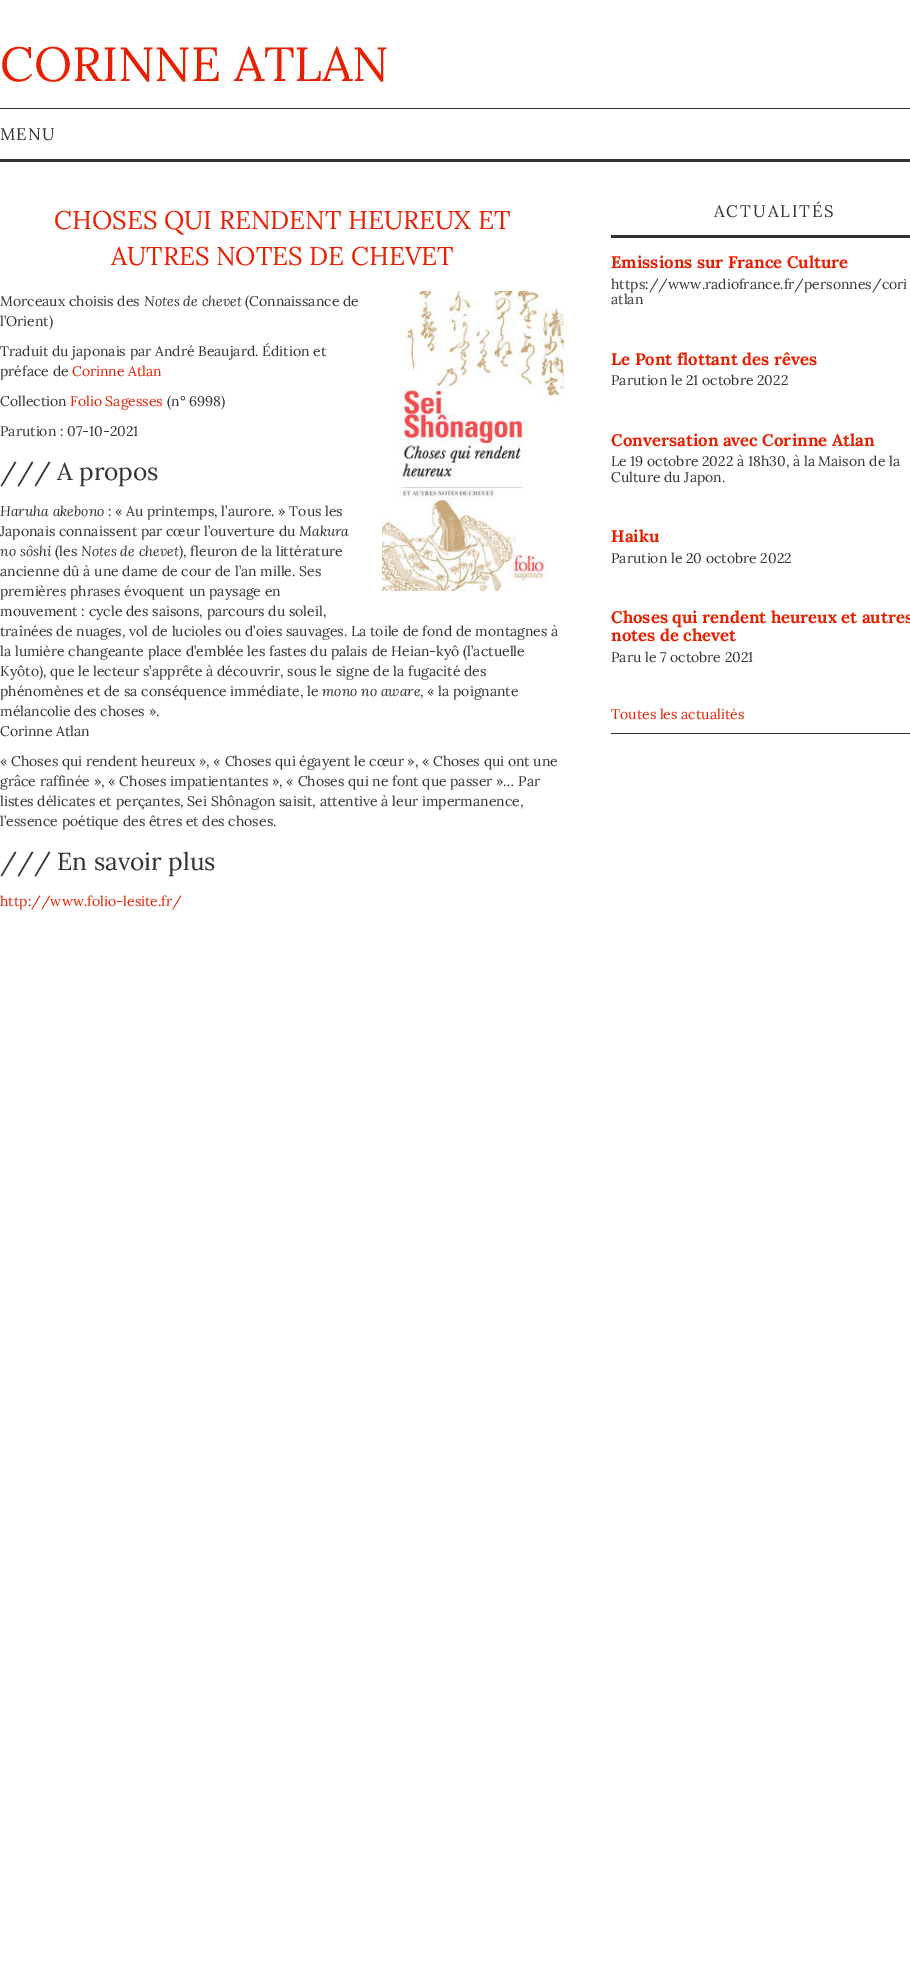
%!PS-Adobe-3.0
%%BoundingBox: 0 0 910 1975
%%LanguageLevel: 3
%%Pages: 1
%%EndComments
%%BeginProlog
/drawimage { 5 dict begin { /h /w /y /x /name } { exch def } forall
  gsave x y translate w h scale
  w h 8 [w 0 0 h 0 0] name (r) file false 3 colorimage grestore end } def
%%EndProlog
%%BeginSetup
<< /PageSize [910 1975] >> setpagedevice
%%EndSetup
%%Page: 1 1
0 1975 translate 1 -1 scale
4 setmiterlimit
1 setgray
0 0 910 1975 rectfill
0.2 setgray
0 108 910 1 rectfill
0 159 910 3 rectfill
(images/1.raw) 382 291 182 300 drawimage
611 733 299 1 rectfill
611 235 299 3 rectfill
/Lora-Regular [48 0 0 -48 0 0] selectfont
0.902 0.125 0 setrgbcolor
0 81 moveto (CORINNE ATLAN) show
/Lora-Regular [16.75 0 0 -16.75 0 0] selectfont
0.2 setgray
0 140 moveto 1 0 (MENU) ashow
/Lora-Regular [25.6 0 0 -25.6 0 0] selectfont
0.902 0.125 0 setrgbcolor
54 229 moveto (CHOSES QUI RENDENT HEUREUX ET) show
111 265 moveto (AUTRES NOTES DE CHEVET) show
/Lora-Regular [14 0 0 -14 0 0] selectfont
0.2 setgray
0 306 moveto (Morceaux choisis des) show
/Lora-Italic [14 0 0 -14 0 0] selectfont
144 306 moveto (Notes de chevet) show
/Lora-Regular [14 0 0 -14 0 0] selectfont
245 306 moveto (\(Connaissance de) show
0 326 moveto (l’Orient\)) show
0 356 moveto (Traduit du japonais par André Beaujard. Édition et) show
0 376 moveto (préface de) show
0.902 0.125 0 setrgbcolor
72 376 moveto (Corinne Atlan) show
0.2 setgray
0 406 moveto (Collection) show
0.902 0.125 0 setrgbcolor
70 406 moveto (Folio Sagesses) show
0.2 setgray
167 406 moveto (\(n° 6998\)) show
0 436 moveto (Parution : 07-10-2021) show
/Lora-Regular [24.5 0 0 -24.5 0 0] selectfont
0 480 moveto (/// A propos) show
/Lora-Italic [14 0 0 -14 0 0] selectfont
0 516 moveto (Haruha akebono) show
/Lora-Regular [14 0 0 -14 0 0] selectfont
108 516 moveto (: « Au printemps, l’aurore. » Tous les) show
0 536 moveto (Japonais connaissent par cœur l’ouverture du) show
/Lora-Italic [14 0 0 -14 0 0] selectfont
299 536 moveto (Makura) show
0 556 moveto (no sôshi) show
/Lora-Regular [14 0 0 -14 0 0] selectfont
55 556 moveto (\(les) show
/Lora-Italic [14 0 0 -14 0 0] selectfont
81 556 moveto (Notes de chevet) show
/Lora-Regular [14 0 0 -14 0 0] selectfont
179 556 moveto (\), fleuron de la littérature) show
0 576 moveto (ancienne dû à une dame de cour de l’an mille. Ses) show
0 596 moveto (premières phrases évoquent un paysage en) show
0 616 moveto (mouvement : cycle des saisons, parcours du soleil,) show
0 636 moveto (traînées de nuages, vol de lucioles ou d’oies sauvages. La toile de fond de montagnes à) show
0 656 moveto (la lumière changeante place d’emblée les fastes du palais de Heian-kyô \(l’actuelle) show
0 676 moveto (Kyôto\), que le lecteur s’apprête à découvrir, sous le signe de la fugacité des) show
0 696 moveto (phénomènes et de sa conséquence immédiate, le) show
/Lora-Italic [14 0 0 -14 0 0] selectfont
322 696 moveto (mono no aware) show
/Lora-Regular [14 0 0 -14 0 0] selectfont
420 696 moveto (, « la poignante) show
0 716 moveto (mélancolie des choses ».) show
0 736 moveto (Corinne Atlan) show
0 766 moveto (« Choses qui rendent heureux », « Choses qui égayent le cœur », « Choses qui ont une) show
0 786 moveto (grâce raffinée », « Choses impatientantes », « Choses qui ne font que passer »… Par) show
0 806 moveto (listes délicates et perçantes, Sei Shônagon saisit, attentive à leur impermanence,) show
0 826 moveto (l’essence poétique des êtres et des choses.) show
/Lora-Regular [24.5 0 0 -24.5 0 0] selectfont
0 870 moveto (/// En savoir plus) show
/Lora-Regular [14 0 0 -14 0 0] selectfont
0.902 0.125 0 setrgbcolor
0 906 moveto (http://www.folio-lesite.fr/) show
/Lora-Regular [16.75 0 0 -16.75 0 0] selectfont
0.2 setgray
714 217 moveto 2 0 (ACTUALITÉS) ashow
/Lora-Bold [16.75 0 0 -16.75 0 0] selectfont
0.902 0.125 0 setrgbcolor
611 268 moveto (Emissions sur France Culture) show
/Lora-Regular [14 0 0 -14 0 0] selectfont
0.2 setgray
611 289 moveto (https://www.radiofrance.fr/personnes/cori) show
611 304 moveto (atlan) show
/Lora-Bold [16.75 0 0 -16.75 0 0] selectfont
0.902 0.125 0 setrgbcolor
611 365 moveto (Le Pont flottant des rêves) show
/Lora-Regular [14 0 0 -14 0 0] selectfont
0.2 setgray
611 385 moveto (Parution le 21 octobre 2022) show
/Lora-Bold [16.75 0 0 -16.75 0 0] selectfont
0.902 0.125 0 setrgbcolor
611 446 moveto (Conversation avec Corinne Atlan) show
/Lora-Regular [14 0 0 -14 0 0] selectfont
0.2 setgray
611 466 moveto (Le 19 octobre 2022 à 18h30, à la Maison de la) show
611 482 moveto (Culture du Japon.) show
/Lora-Bold [16.75 0 0 -16.75 0 0] selectfont
0.902 0.125 0 setrgbcolor
611 542 moveto (Haiku) show
/Lora-Regular [14 0 0 -14 0 0] selectfont
0.2 setgray
611 563 moveto (Parution le 20 octobre 2022) show
/Lora-Bold [16.75 0 0 -16.75 0 0] selectfont
0.902 0.125 0 setrgbcolor
611 623 moveto (Choses qui rendent heureux et autres) show
611 641 moveto (notes de chevet) show
/Lora-Regular [14 0 0 -14 0 0] selectfont
0.2 setgray
611 662 moveto (Paru le 7 octobre 2021) show
0.902 0.125 0 setrgbcolor
611 719 moveto (Toutes les actualités) show
showpage
%%EOF
